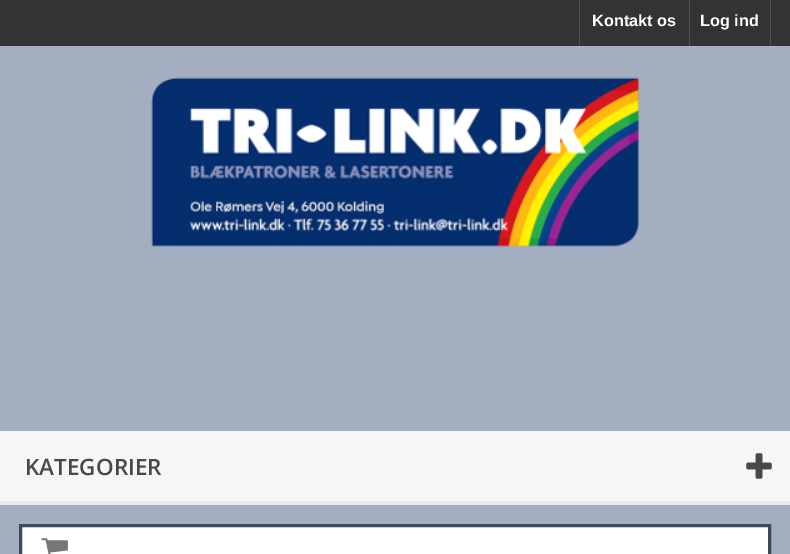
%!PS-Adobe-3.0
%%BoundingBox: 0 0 790 554
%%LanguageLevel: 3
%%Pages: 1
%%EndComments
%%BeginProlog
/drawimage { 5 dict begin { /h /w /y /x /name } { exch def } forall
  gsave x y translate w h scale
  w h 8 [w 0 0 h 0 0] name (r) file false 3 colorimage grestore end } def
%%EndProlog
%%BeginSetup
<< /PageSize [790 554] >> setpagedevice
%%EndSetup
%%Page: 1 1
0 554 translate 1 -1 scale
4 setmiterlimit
0.643 0.682 0.757 setrgbcolor
0 0 790 554 rectfill
0.2 setgray
0 0 790 46 rectfill
0.318 setgray
579 0 1 46 rectfill
770 0 1 46 rectfill
689 0 1 46 rectfill
(images/1.raw) 151 77 488 170 drawimage
0.965 setgray
0 431 790 70 rectfill
0.914 setgray
0 501 790 4 rectfill
(images/2.raw) 746 453 26 26 drawimage
1 setgray
newpath 20.5 525.5 moveto 769.5 525.5 lineto 769.5 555.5 lineto 20.5 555.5 lineto closepath gsave fill grestore
0.243 0.282 0.357 setrgbcolor
3 setlinewidth
stroke
(images/3.raw) 41 538 27 16 drawimage
/LiberationSans-Bold [16.25 0 0 -16.25 0 0] selectfont
1 setgray
592 26 moveto (Kontakt os) show
700 26 moveto (Log ind) show
/OpenSans-SemiBold [22.5 0 0 -22.5 0 0] selectfont
0.282 setgray
25 475 moveto (KATEGORIER) show
showpage
%%EOF
